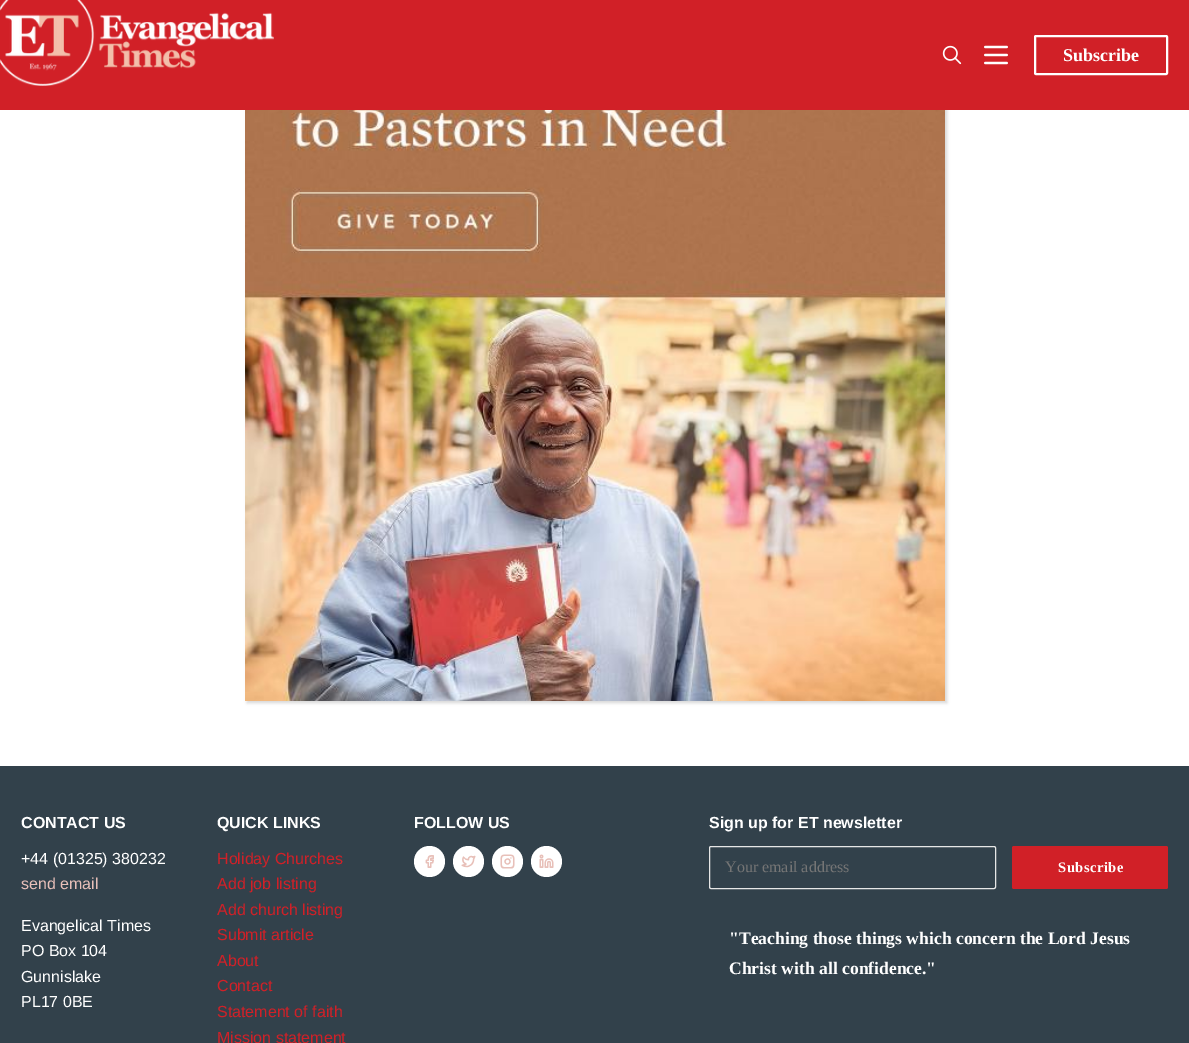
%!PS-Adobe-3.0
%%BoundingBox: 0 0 1189 1043
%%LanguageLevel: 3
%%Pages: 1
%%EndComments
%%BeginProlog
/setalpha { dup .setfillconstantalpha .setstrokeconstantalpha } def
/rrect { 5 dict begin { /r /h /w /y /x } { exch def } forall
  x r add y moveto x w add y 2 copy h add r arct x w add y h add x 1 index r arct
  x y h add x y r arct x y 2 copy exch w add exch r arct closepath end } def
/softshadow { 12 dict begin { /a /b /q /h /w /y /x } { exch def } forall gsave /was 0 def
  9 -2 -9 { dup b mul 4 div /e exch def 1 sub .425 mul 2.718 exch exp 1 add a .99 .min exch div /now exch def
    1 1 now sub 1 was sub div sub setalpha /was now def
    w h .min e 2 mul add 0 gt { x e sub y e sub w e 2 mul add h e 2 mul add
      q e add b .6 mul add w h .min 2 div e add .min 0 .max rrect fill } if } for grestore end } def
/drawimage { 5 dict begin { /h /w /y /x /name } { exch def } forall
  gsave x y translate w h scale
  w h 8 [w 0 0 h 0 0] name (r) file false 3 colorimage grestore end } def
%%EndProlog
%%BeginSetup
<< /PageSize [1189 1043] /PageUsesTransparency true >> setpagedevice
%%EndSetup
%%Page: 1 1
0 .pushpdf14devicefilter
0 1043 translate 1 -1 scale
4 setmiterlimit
1 setgray
0 0 1189 1043 rectfill
0 setgray
247 3 700 700 0 1.5 0.15 softshadow
(images/1.raw) 245 110 700 591 drawimage
0.82 0.125 0.153 setrgbcolor
0 0 1189 110 rectfill
(images/2.raw) 0 0 274 86 drawimage
(images/3.raw) 942 45 20 20 drawimage
(images/4.raw) 984 45 24 20 drawimage
1 setgray
2 setlinewidth
1035 36 132 38 1 rrect stroke
0.196 0.255 0.294 setrgbcolor
0 766 1189 277 rectfill
1 setgray
newpath 429.5 861.5 15.5 0 360 arc closepath fill
(images/5.raw) 425 855 9 13 drawimage
newpath 468.5 861.5 15.5 0 360 arc closepath fill
(images/6.raw) 461 855 15 13 drawimage
newpath 507.5 861.5 15.5 0 360 arc closepath fill
(images/7.raw) 500 854 15 15 drawimage
newpath 546.5 861.5 15.5 0 360 arc closepath fill
(images/8.raw) 539 854 15 14 drawimage
0.902 setgray
1 setlinewidth
709.5 846.5 286 42 1.5 rrect stroke
0.82 0.125 0.153 setrgbcolor
1012 846 156 43 2 rrect fill
/LiberationSerif-Bold [18 0 0 -18 0 0] selectfont
1 setgray
1063 61 moveto (Subscribe) show
/LiberationSans-Bold [16 0 0 -16 0 0] selectfont
21 828 moveto (CONTACT US) show
/LiberationSans-Regular [16 0 0 -16 0 0] selectfont
21 864 moveto (+44 \(01325\) 380232) show
0.91 0.753 0.725 setrgbcolor
21 889 moveto (send email) show
1 setgray
21 931 moveto (Evangelical Times) show
21 956 moveto (PO Box 104) show
21 982 moveto (Gunnislake) show
21 1007 moveto (PL17 0BE) show
/LiberationSans-Bold [16 0 0 -16 0 0] selectfont
217 828 moveto (QUICK LINKS) show
/LiberationSans-Regular [16 0 0 -16 0 0] selectfont
0.82 0.125 0.153 setrgbcolor
217 864 moveto (Holiday Churches) show
217 889 moveto (Add job listing) show
217 915 moveto (Add church listing) show
217 940 moveto (Submit article) show
217 966 moveto (About) show
217 991 moveto (Contact) show
217 1017 moveto (Statement of faith) show
217 1043 moveto (Mission statement) show
/LiberationSans-Bold [16 0 0 -16 0 0] selectfont
1 setgray
414 828 moveto (FOLLOW US) show
709 828 moveto (Sign up for ET newsletter) show
/LiberationSerif-Regular [16 0 0 -16 0 0] selectfont
0.459 setgray
725 872 moveto (Your email address) show
/LiberationSerif-Bold [14.5 0 0 -14.5 0 0] selectfont
1 setgray
1058 872 moveto 0.5 0 (Subscribe) ashow
/LiberationSerif-Bold [17.6 0 0 -17.6 0 0] selectfont
729 944 moveto ("Teaching those things which concern the Lord Jesus) show
729 974 moveto (Christ with all confidence.") show
.poppdf14devicefilter showpage
%%EOF
